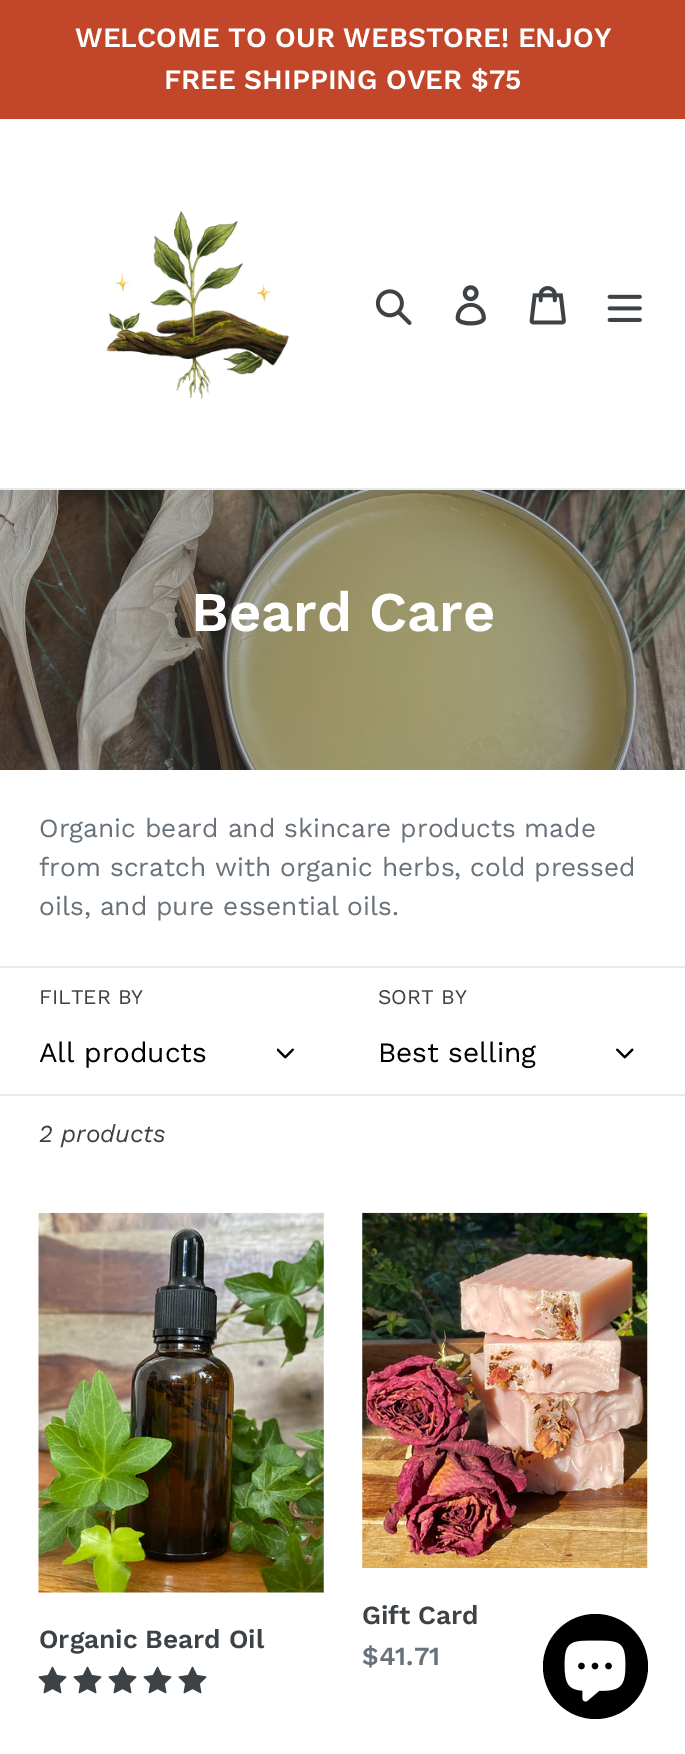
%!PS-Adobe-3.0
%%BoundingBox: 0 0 685 1754
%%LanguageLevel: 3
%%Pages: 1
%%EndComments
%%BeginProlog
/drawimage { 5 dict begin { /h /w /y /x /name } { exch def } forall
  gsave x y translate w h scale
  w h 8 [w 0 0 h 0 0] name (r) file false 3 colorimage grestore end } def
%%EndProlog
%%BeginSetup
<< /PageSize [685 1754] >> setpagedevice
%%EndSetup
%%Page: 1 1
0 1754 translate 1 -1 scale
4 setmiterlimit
1 setgray
0 0 685 1754 rectfill
0.761 0.278 0.165 setrgbcolor
0 0 685 119 rectfill
0.91 0.914 0.922 setrgbcolor
0 488 685 2 rectfill
(images/1.raw) 106 210 184 189 drawimage
(images/2.raw) 375 289 37 36 drawimage
(images/3.raw) 455 285 31 41 drawimage
(images/4.raw) 529 286 37 39 drawimage
(images/5.raw) 607 294 35 28 drawimage
(images/6.raw) 0 490 685 280 drawimage
0 966 685 2 rectfill
(images/7.raw) 277 1048 17 11 drawimage
(images/8.raw) 616 1048 18 11 drawimage
0 1094 685 2 rectfill
(images/9.raw) 38 1212 286 381 drawimage
(images/10.raw) 38 1666 29 28 drawimage
(images/10.raw) 73 1666 29 28 drawimage
(images/10.raw) 108 1666 29 28 drawimage
(images/10.raw) 143 1666 29 28 drawimage
(images/10.raw) 178 1666 29 28 drawimage
(images/11.raw) 362 1212 286 356 drawimage
0 setgray
newpath 595.5 1666.5 52.5 0 360 arc closepath fill
(images/12.raw) 564 1640 62 62 drawimage
/WorkSans-SemiBold [28 0 0 -28 0 0] selectfont
1 setgray
75 47 moveto (WELCOME TO OUR WEBSTORE! ENJOY) show
164 89 moveto (FREE SHIPPING OVER $75) show
/WorkSans-SemiBold [56 0 0 -56 0 0] selectfont
191 631 moveto (Beard Care) show
/WorkSans-Regular [26.25 0 0 -26.25 0 0] selectfont
0.412 0.447 0.482 setrgbcolor
39 837 moveto (Organic beard and skincare products made) show
39 876 moveto (from scratch with organic herbs, cold pressed) show
39 915 moveto (oils, and pure essential oils.) show
/WorkSans-Regular [21 0 0 -21 0 0] selectfont
0.239 0.259 0.275 setrgbcolor
39 1004 moveto (FILTER BY) show
/WorkSans-Regular [28 0 0 -28 0 0] selectfont
0 setgray
39 1062 moveto (All products) show
/WorkSans-Regular [21 0 0 -21 0 0] selectfont
0.239 0.259 0.275 setrgbcolor
378 1004 moveto (SORT BY) show
/WorkSans-Regular [28 0 0 -28 0 0] selectfont
0 setgray
378 1062 moveto (Best selling) show
/WorkSans-Italic [24.5 0 0 -24.5 0 0] selectfont
0.239 0.259 0.275 setrgbcolor
39 1142 moveto (2 products) show
/WorkSans-SemiBold [26.25 0 0 -26.25 0 0] selectfont
39 1648 moveto (Organic Beard Oil) show
362 1624 moveto (Gift Card) show
0.412 0.447 0.482 setrgbcolor
362 1665 moveto ($41.71) show
showpage
%%EOF
